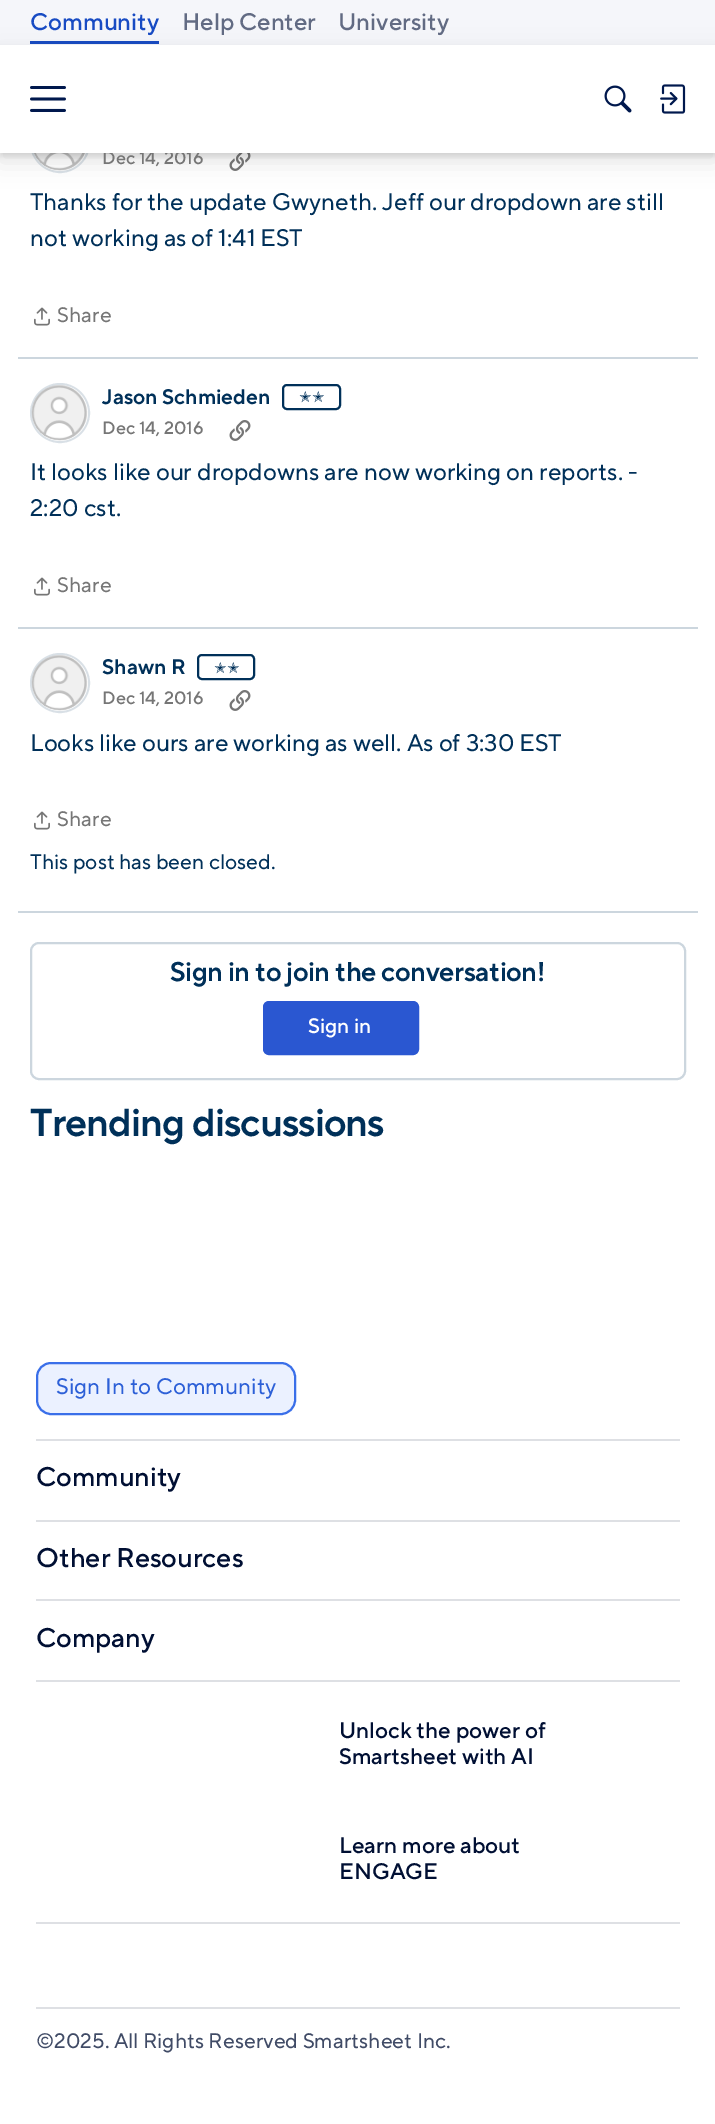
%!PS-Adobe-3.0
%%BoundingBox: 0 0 715 2124
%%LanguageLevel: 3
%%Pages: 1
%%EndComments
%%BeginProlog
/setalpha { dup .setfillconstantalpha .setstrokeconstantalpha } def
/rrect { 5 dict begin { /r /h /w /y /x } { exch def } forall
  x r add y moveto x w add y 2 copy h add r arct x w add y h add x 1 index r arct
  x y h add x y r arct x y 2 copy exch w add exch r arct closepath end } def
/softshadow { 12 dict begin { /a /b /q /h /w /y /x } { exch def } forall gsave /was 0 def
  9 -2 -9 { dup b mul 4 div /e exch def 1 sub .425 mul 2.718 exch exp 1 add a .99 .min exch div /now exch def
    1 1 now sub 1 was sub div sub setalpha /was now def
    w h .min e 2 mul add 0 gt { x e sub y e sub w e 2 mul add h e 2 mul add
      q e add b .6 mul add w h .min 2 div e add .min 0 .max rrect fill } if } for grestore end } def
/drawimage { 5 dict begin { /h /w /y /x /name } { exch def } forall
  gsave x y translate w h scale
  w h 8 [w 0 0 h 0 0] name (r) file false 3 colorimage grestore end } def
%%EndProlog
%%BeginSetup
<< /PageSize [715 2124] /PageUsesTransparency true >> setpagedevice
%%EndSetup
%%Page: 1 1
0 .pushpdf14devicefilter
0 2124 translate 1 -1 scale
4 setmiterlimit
1 setgray
0 0 715 2124 rectfill
0.961 0.965 0.98 setrgbcolor
0 0 715 45 rectfill
0.094 0.294 0.765 setrgbcolor
30 41 129 3 rectfill
0.851 0.878 0.902 setrgbcolor
2 setlinewidth
newpath 60 143 29 0 360 arc closepath stroke
(images/4.raw) 33 153 52 18 drawimage
(images/5.raw) 229 153 22 18 drawimage
0 setgray
0 54 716 108 0 12 0.1 softshadow
0 48 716 108 0 3 0.12 softshadow
(images/6.raw) 34 307 16 19 drawimage
0.8 0.839 0.871 setrgbcolor
18 357 680 2 rectfill
0.851 0.878 0.902 setrgbcolor
newpath 60 413 29 0 360 arc closepath stroke
(images/7.raw) 31 385 57 56 drawimage
0 0.188 0.349 setrgbcolor
283 385 57 24 4 rrect stroke
(images/8.raw) 229 420 22 21 drawimage
(images/6.raw) 34 577 16 19 drawimage
0.8 0.839 0.871 setrgbcolor
18 627 680 2 rectfill
0.851 0.878 0.902 setrgbcolor
newpath 60 683 29 0 360 arc closepath stroke
(images/7.raw) 31 655 57 56 drawimage
0 0.188 0.349 setrgbcolor
198 655 56 24 4 rrect stroke
(images/8.raw) 229 690 22 21 drawimage
(images/6.raw) 34 811 16 19 drawimage
0.8 0.839 0.871 setrgbcolor
18 911 680 2 rectfill
31 943 654 136 8 rrect stroke
0.165 0.341 0.82 setrgbcolor
264 1002 154 52 5 rrect gsave fill grestore
stroke
0.922 0.945 1 setrgbcolor
37 1363 258 51 14 rrect gsave fill grestore
0.227 0.435 0.914 setrgbcolor
stroke
0.871 0.878 0.894 setrgbcolor
36 1439 644 2 rectfill
36 1520 644 2 rectfill
36 1599 644 2 rectfill
36 1680 644 2 rectfill
36 1922 644 2 rectfill
36 2007 644 2 rectfill
/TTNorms-Medium [24 0 0 -24 0 0] selectfont
0.094 0.294 0.765 setrgbcolor
30 30 moveto (Community) show
0.384 0.42 0.514 setrgbcolor
182 30 moveto (Help Center) show
338 30 moveto (University) show
/TTNorms-Medium [18 0 0 -18 0 0] selectfont
0.463 setgray
102 164 moveto (Dec 14, 2016) show
1 setgray
0 45 715 108 rectfill
(images/2.raw) 604 85 28 28 drawimage
(images/1.raw) 30 86 36 26 drawimage
(images/3.raw) 660 84 26 30 drawimage
/TTNorms-Regular [24 0 0 -24 0 0] selectfont
0 0.188 0.349 setrgbcolor
30 210 moveto (Thanks for the update Gwyneth. Jeff our dropdown are still) show
30 246 moveto (not working as of 1:41 EST) show
/TTNorms-Regular [21 0 0 -21 0 0] selectfont
0.463 setgray
57 322 moveto (Share) show
/TTNorms-SemiBold [21 0 0 -21 0 0] selectfont
0 0.188 0.349 setrgbcolor
102 404 moveto (Jason Schmieden) show
/DejaVuSans-Regular [15 0 0 -15 0 0] selectfont
299 402 moveto (✭✭) show
/TTNorms-Medium [18 0 0 -18 0 0] selectfont
0.463 setgray
102 434 moveto (Dec 14, 2016) show
/TTNorms-Regular [24 0 0 -24 0 0] selectfont
0 0.188 0.349 setrgbcolor
30 480 moveto (It looks like our dropdowns are now working on reports. -) show
30 516 moveto (2:20 cst.) show
/TTNorms-Regular [21 0 0 -21 0 0] selectfont
0.463 setgray
57 592 moveto (Share) show
/TTNorms-SemiBold [21 0 0 -21 0 0] selectfont
0 0.188 0.349 setrgbcolor
102 674 moveto (Shawn R) show
/DejaVuSans-Regular [15 0 0 -15 0 0] selectfont
214 673 moveto (✭✭) show
/TTNorms-Medium [18 0 0 -18 0 0] selectfont
0.463 setgray
102 704 moveto (Dec 14, 2016) show
/TTNorms-Regular [24 0 0 -24 0 0] selectfont
0 0.188 0.349 setrgbcolor
30 751 moveto (Looks like ours are working as well. As of 3:30 EST) show
/TTNorms-Regular [21 0 0 -21 0 0] selectfont
0.463 setgray
57 826 moveto (Share) show
0 0.188 0.349 setrgbcolor
30 869 moveto (This post has been closed.) show
/TTNorms-SemiBold [27 0 0 -27 0 0] selectfont
170 981 moveto -0.4 0 (Sign in to join the conversation!) ashow
/TTNorms-Medium [21 0 0 -21 0 0] selectfont
1 setgray
308 1033 moveto (Sign in) show
/TTNorms-SemiBold [39 0 0 -39 0 0] selectfont
0 0.188 0.349 setrgbcolor
30 1136 moveto -0.9 0 (Trending discussions) ashow
/TTNorms-Regular [22.5 0 0 -22.5 0 0] selectfont
0.176 0.376 0.843 setrgbcolor
56 1394 moveto (Sign In to Community) show
/TTNorms-Medium [27 0 0 -27 0 0] selectfont
0 0.059 0.2 setrgbcolor
36 1486 moveto (Community) show
36 1567 moveto (Other Resources) show
36 1647 moveto (Company) show
/TTNorms-Medium [22.5 0 0 -22.5 0 0] selectfont
339 1738 moveto (Unlock the power of) show
339 1764 moveto (Smartsheet with AI) show
339 1853 moveto (Learn more about) show
339 1879 moveto (ENGAGE) show
/TTNorms-Regular [21 0 0 -21 0 0] selectfont
0.251 0.294 0.4 setrgbcolor
36 2048 moveto (©2025. All Rights Reserved Smartsheet Inc.) show
.poppdf14devicefilter showpage
%%EOF
